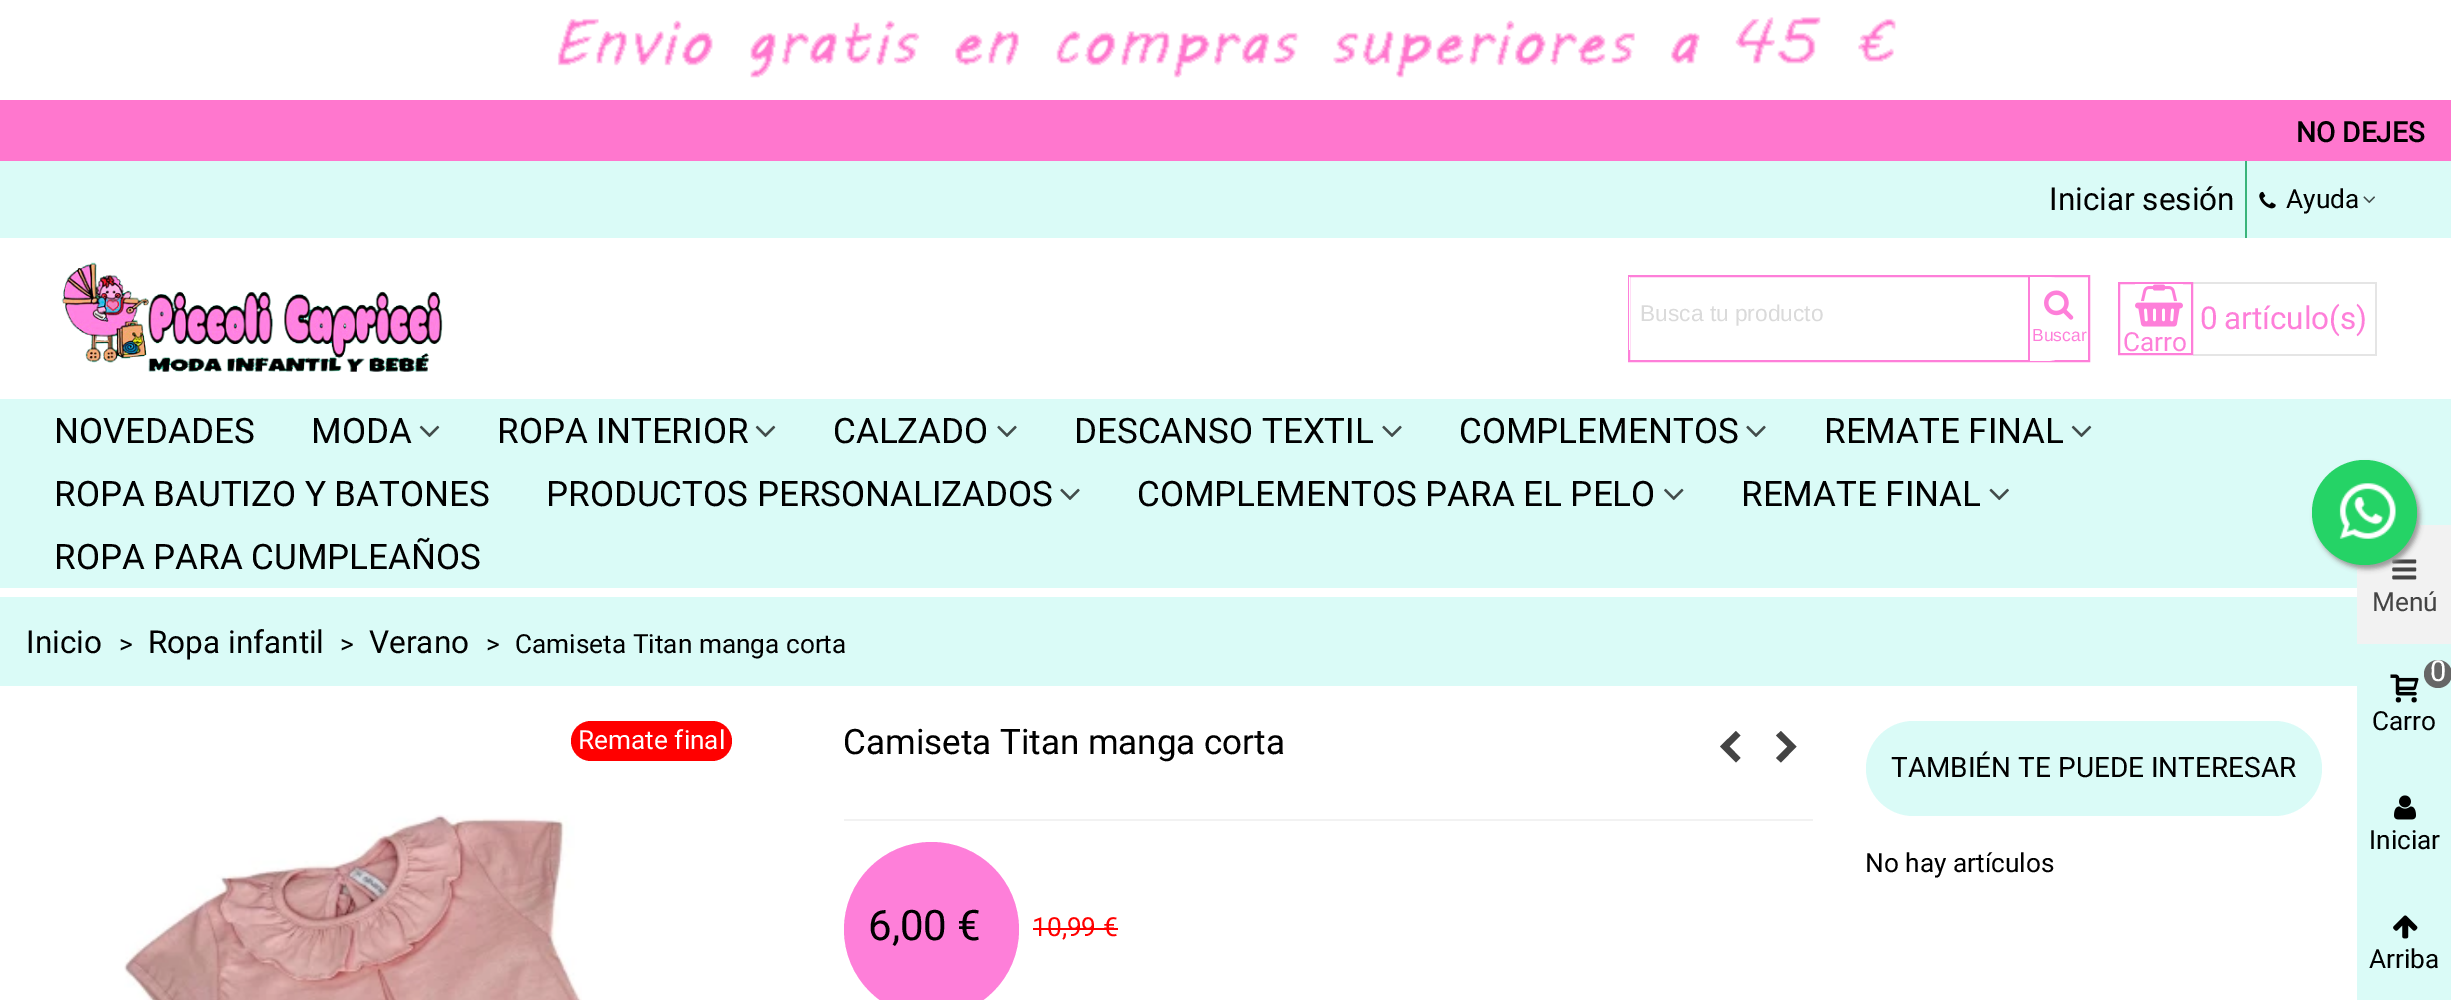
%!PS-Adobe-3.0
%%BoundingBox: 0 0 2451 1000
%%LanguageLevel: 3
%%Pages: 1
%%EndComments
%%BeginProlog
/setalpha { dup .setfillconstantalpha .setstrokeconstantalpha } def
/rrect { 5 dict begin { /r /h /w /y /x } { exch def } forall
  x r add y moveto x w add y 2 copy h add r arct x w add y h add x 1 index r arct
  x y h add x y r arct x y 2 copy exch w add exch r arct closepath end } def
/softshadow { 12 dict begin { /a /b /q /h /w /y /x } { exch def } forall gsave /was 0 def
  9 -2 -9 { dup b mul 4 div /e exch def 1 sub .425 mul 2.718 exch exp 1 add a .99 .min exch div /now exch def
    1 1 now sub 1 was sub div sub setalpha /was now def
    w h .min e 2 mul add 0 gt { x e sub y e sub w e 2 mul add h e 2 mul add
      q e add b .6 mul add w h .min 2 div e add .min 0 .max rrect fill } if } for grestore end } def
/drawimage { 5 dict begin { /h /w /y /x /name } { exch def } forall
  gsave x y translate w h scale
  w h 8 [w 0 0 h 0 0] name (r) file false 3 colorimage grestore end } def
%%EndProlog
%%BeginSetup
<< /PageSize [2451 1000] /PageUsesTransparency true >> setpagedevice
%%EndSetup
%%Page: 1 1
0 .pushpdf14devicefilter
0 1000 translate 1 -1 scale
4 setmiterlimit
1 setgray
0 0 2451 1000 rectfill
(images/1.raw) 557 17 1339 61 drawimage
1 0.467 0.808 setrgbcolor
0 100 2451 61 rectfill
0.855 0.984 0.969 setrgbcolor
0 161 2451 77 rectfill
0.227 0.706 0.482 setrgbcolor
2245 161 2 77 rectfill
(images/2.raw) 2259 191 17 18 drawimage
(images/3.raw) 2363 196 12 8 drawimage
(images/4.raw) 61 262 382 110 drawimage
0.996 0.498 0.851 setrgbcolor
2 setlinewidth
1629 276 460 85 rectstroke
1 setgray
1629 277 1 73 rectfill
newpath 2028 277 moveto 2046 277 lineto 2069 277 2088 296 2088 319 curveto 2088 342 2069 361 2046 361 curveto 2028 361 lineto closepath fill
0.996 0.498 0.851 setrgbcolor
2028 277 2 84 rectfill
(images/5.raw) 2044 290 30 30 drawimage
0.898 setgray
2193 282 184 2 rectfill
2193 354 24 2 rectfill
2375 282 2 73 rectfill
2217 354 160 2 rectfill
0.996 0.498 0.851 setrgbcolor
2119 283 73 71 rectstroke
(images/6.raw) 2135 284 48 43 drawimage
0.855 0.984 0.969 setrgbcolor
0 399 2451 189 rectfill
(images/7.raw) 419 425 21 13 drawimage
(images/7.raw) 755 425 21 13 drawimage
(images/8.raw) 997 425 20 12 drawimage
(images/8.raw) 1382 425 20 12 drawimage
(images/8.raw) 1746 425 20 12 drawimage
(images/7.raw) 2071 425 21 13 drawimage
(images/8.raw) 1060 488 20 12 drawimage
(images/9.raw) 1664 488 20 13 drawimage
(images/10.raw) 1989 488 20 13 drawimage
0 597 2357 89 rectfill
1 0 0 setrgbcolor
571 721 161 40 20 rrect fill
(images/11.raw) 124 814 458 186 drawimage
0.267 setgray
newpath 1720 746.5 moveto 1736 731 lineto 1740.5 735.5 lineto 1729.5 746.5 lineto 1740.5 758 lineto 1736 762.5 lineto closepath fill
newpath 1776 758 moveto 1787.5 746.5 lineto 1776 735.5 lineto 1781 731 lineto 1796.5 746.5 lineto 1781 762.5 lineto closepath fill
0.949 setgray
844 819 969 2 rectfill
0.996 0.498 0.851 setrgbcolor
newpath 931.5 929.5 87.5 0 360 arc closepath fill
1 0 0 setrgbcolor
1033 928 85 2 rectfill
0.855 0.984 0.969 setrgbcolor
1866 721 456 95 47.5 rrect fill
0.949 setgray
2357 525 94 119 rectfill
(images/12.raw) 2392 559 25 21 drawimage
0.855 0.984 0.969 setrgbcolor
2357 644 94 356 rectfill
0.4 setgray
newpath 2438 674 14 0 360 arc closepath fill
(images/13.raw) 2390 674 29 29 drawimage
(images/14.raw) 2394 795 22 25 drawimage
(images/15.raw) 2393 915 25 24 drawimage
0.6 setgray
2315 464 105 105 52.5 2.5 1 softshadow
0.145 0.827 0.4 setrgbcolor
newpath 2364.5 512.5 52.5 0 360 arc closepath fill
(images/16.raw) 2339 483 57 56 drawimage
/Roboto-Bold [28 0 0 -28 0 0] selectfont
0 setgray
2296 142 moveto (NO DEJES) show
/Roboto-Regular [31.5 0 0 -31.5 0 0] selectfont
2049 210 moveto (Iniciar sesión) show
/Roboto-Regular [26.25 0 0 -26.25 0 0] selectfont
2286 208 moveto (Ayuda) show
/LiberationSans-Regular [22.75 0 0 -22.75 0 0] selectfont
0.855 setgray
1640 321 moveto (Busca tu producto) show
/LiberationSans-Regular [17.5 0 0 -17.5 0 0] selectfont
0.996 0.498 0.851 setrgbcolor
2032 341 moveto (Buscar) show
/Roboto-Regular [31.5 0 0 -31.5 0 0] selectfont
2200 329 moveto (0) show
2224 329 moveto (artículo\(s\)) show
/Roboto-Regular [26.25 0 0 -26.25 0 0] selectfont
2123 351 moveto (Carro) show
/Roboto-Regular [35 0 0 -35 0 0] selectfont
0 setgray
54 443 moveto (NOVEDADES) show
311 443 moveto (MODA) show
497 443 moveto (ROPA INTERIOR) show
833 443 moveto (CALZADO) show
1074 443 moveto (DESCANSO TEXTIL) show
1459 443 moveto (COMPLEMENTOS) show
1824 443 moveto (REMATE FINAL) show
54 506 moveto (ROPA BAUTIZO Y BATONES) show
546 506 moveto (PRODUCTOS PERSONALIZADOS) show
1137 506 moveto (COMPLEMENTOS PARA EL PELO) show
1741 506 moveto (REMATE FINAL) show
54 569 moveto (ROPA PARA CUMPLEAÑOS) show
/Roboto-Regular [31.5 0 0 -31.5 0 0] selectfont
26 653 moveto (Inicio) show
/Roboto-Regular [26.25 0 0 -26.25 0 0] selectfont
119 653 moveto (>) show
/Roboto-Regular [31.5 0 0 -31.5 0 0] selectfont
148 653 moveto (Ropa infantil) show
/Roboto-Regular [26.25 0 0 -26.25 0 0] selectfont
340 653 moveto (>) show
/Roboto-Regular [31.5 0 0 -31.5 0 0] selectfont
369 653 moveto (Verano) show
/Roboto-Regular [26.25 0 0 -26.25 0 0] selectfont
486 653 moveto (>) show
515 653 moveto (Camiseta Titan manga corta) show
1 setgray
578 749 moveto (Remate final) show
/Roboto-Regular [35 0 0 -35 0 0] selectfont
0 setgray
843 754 moveto (Camiseta Titan manga corta) show
/Roboto-Regular [42 0 0 -42 0 0] selectfont
868 940 moveto (6,00 €) show
/Roboto-Regular [26.25 0 0 -26.25 0 0] selectfont
1 0 0 setrgbcolor
1032 936 moveto (10,99 €) show
/Roboto-Regular [28 0 0 -28 0 0] selectfont
0 setgray
1891 777 moveto (TAMBIÉN TE PUEDE INTERESAR) show
/Roboto-Regular [26.25 0 0 -26.25 0 0] selectfont
1865 872 moveto (No hay artículos) show
0.267 setgray
2372 611 moveto (Menú) show
/Roboto-Regular [29 0 0 -29 0 0] selectfont
1 setgray
2430 681 moveto (0) show
/Roboto-Regular [26.25 0 0 -26.25 0 0] selectfont
0 setgray
2372 730 moveto (Carro) show
2369 849 moveto (Iniciar) show
2369 968 moveto (Arriba) show
.poppdf14devicefilter showpage
%%EOF
